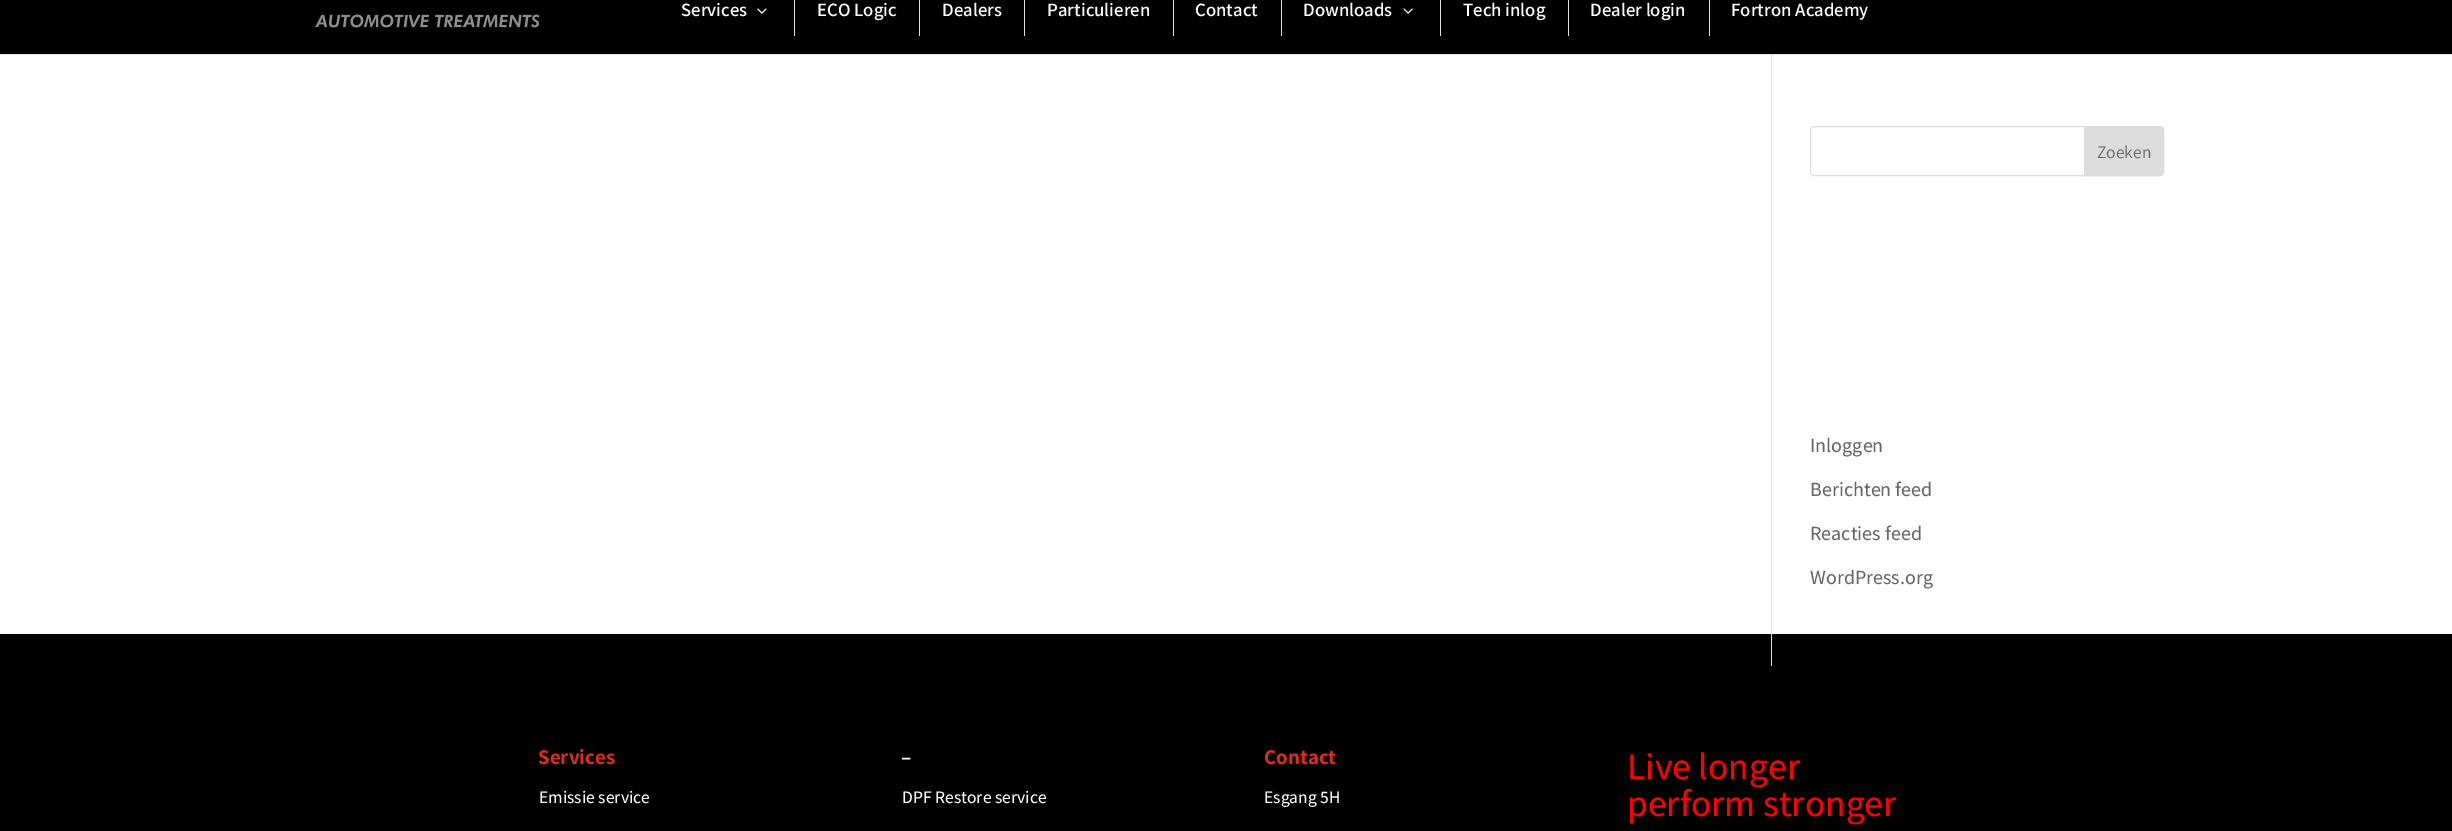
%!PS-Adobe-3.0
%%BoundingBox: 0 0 2452 831
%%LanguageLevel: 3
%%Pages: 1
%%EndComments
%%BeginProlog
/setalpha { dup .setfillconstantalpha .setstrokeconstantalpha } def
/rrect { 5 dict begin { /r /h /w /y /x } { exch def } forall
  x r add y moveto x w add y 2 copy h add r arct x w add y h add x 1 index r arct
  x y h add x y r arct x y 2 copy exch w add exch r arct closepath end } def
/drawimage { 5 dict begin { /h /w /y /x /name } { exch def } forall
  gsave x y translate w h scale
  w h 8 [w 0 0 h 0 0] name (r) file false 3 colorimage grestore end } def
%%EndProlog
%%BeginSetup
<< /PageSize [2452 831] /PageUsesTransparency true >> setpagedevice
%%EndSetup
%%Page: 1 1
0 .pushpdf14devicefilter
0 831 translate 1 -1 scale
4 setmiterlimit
0 setgray
0 0 2452 831 rectfill
1 setgray
0 54 2452 580 rectfill
0.886 setgray
1771 54 1 612 rectfill
0.1 setalpha
0 setgray
newpath 0 54 moveto 0 55 lineto 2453 55 lineto 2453 -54 lineto 2452 -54 lineto 2452 54 lineto closepath fill
1 setalpha
(images/1.raw) 315 14 225 14 drawimage
0.878 setgray
794 0 1 36 rectfill
(images/2.raw) 757 8 10 6 drawimage
919 0 1 36 rectfill
1024 0 1 36 rectfill
1173 0 1 36 rectfill
1281 0 1 36 rectfill
1440 0 1 36 rectfill
(images/3.raw) 1403 8 10 6 drawimage
1568 0 1 36 rectfill
1709 0 1 36 rectfill
0.867 setgray
1810.5 126.5 353 49 3.5 rrect stroke
newpath 2084.5 126.5 moveto 2160 126.5 lineto 2162 126.5 2163.5 128 2163.5 130 curveto 2163.5 172 lineto 2163.5 174 2162 175.5 2160 175.5 curveto 2084.5 175.5 lineto closepath gsave fill grestore
stroke
/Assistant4-ExtraLight [18.75 0 0 -18.75 0 0] selectfont
1 setgray
681 16 moveto (Services) show
817 16 moveto (ECO Logic) show
942 16 moveto (Dealers) show
1047 16 moveto (Particulieren) show
1195 16 moveto (Contact) show
1303 16 moveto (Downloads) show
1463 16 moveto (Tech inlog) show
1590 16 moveto (Dealer login) show
1731 16 moveto (Fortron Academy) show
/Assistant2-ExtraLight [17.5 0 0 -17.5 0 0] selectfont
0.4 setgray
2097 158 moveto (Zoeken) show
/Assistant-ExtraLight [20 0 0 -20 0 0] selectfont
1810 452 moveto (Inloggen) show
1810 496 moveto (Berichten feed) show
1810 540 moveto (Reacties feed) show
1810 584 moveto (WordPress.org) show
/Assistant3-ExtraLight [21 0 0 -21 0 0] selectfont
0.878 0.169 0.125 setrgbcolor
538 764 moveto (Services) show
/Assistant-ExtraLight [17.5 0 0 -17.5 0 0] selectfont
1 setgray
539 803 moveto (Emissie service) show
/Assistant3-ExtraLight [21 0 0 -21 0 0] selectfont
901 764 moveto (–) show
/Assistant-ExtraLight [17.5 0 0 -17.5 0 0] selectfont
902 803 moveto (DPF Restore service) show
/Assistant3-ExtraLight [21 0 0 -21 0 0] selectfont
0.878 0.169 0.125 setrgbcolor
1264 764 moveto (Contact) show
/Assistant-ExtraLight [17.5 0 0 -17.5 0 0] selectfont
1 setgray
1264 803 moveto (Esgang 5H) show
/Assistant-ExtraLight [37.5 0 0 -37.5 0 0] selectfont
1 0 0 setrgbcolor
1627 779 moveto (Live longer) show
1627 816 moveto (perform stronger) show
.poppdf14devicefilter showpage
%%EOF
